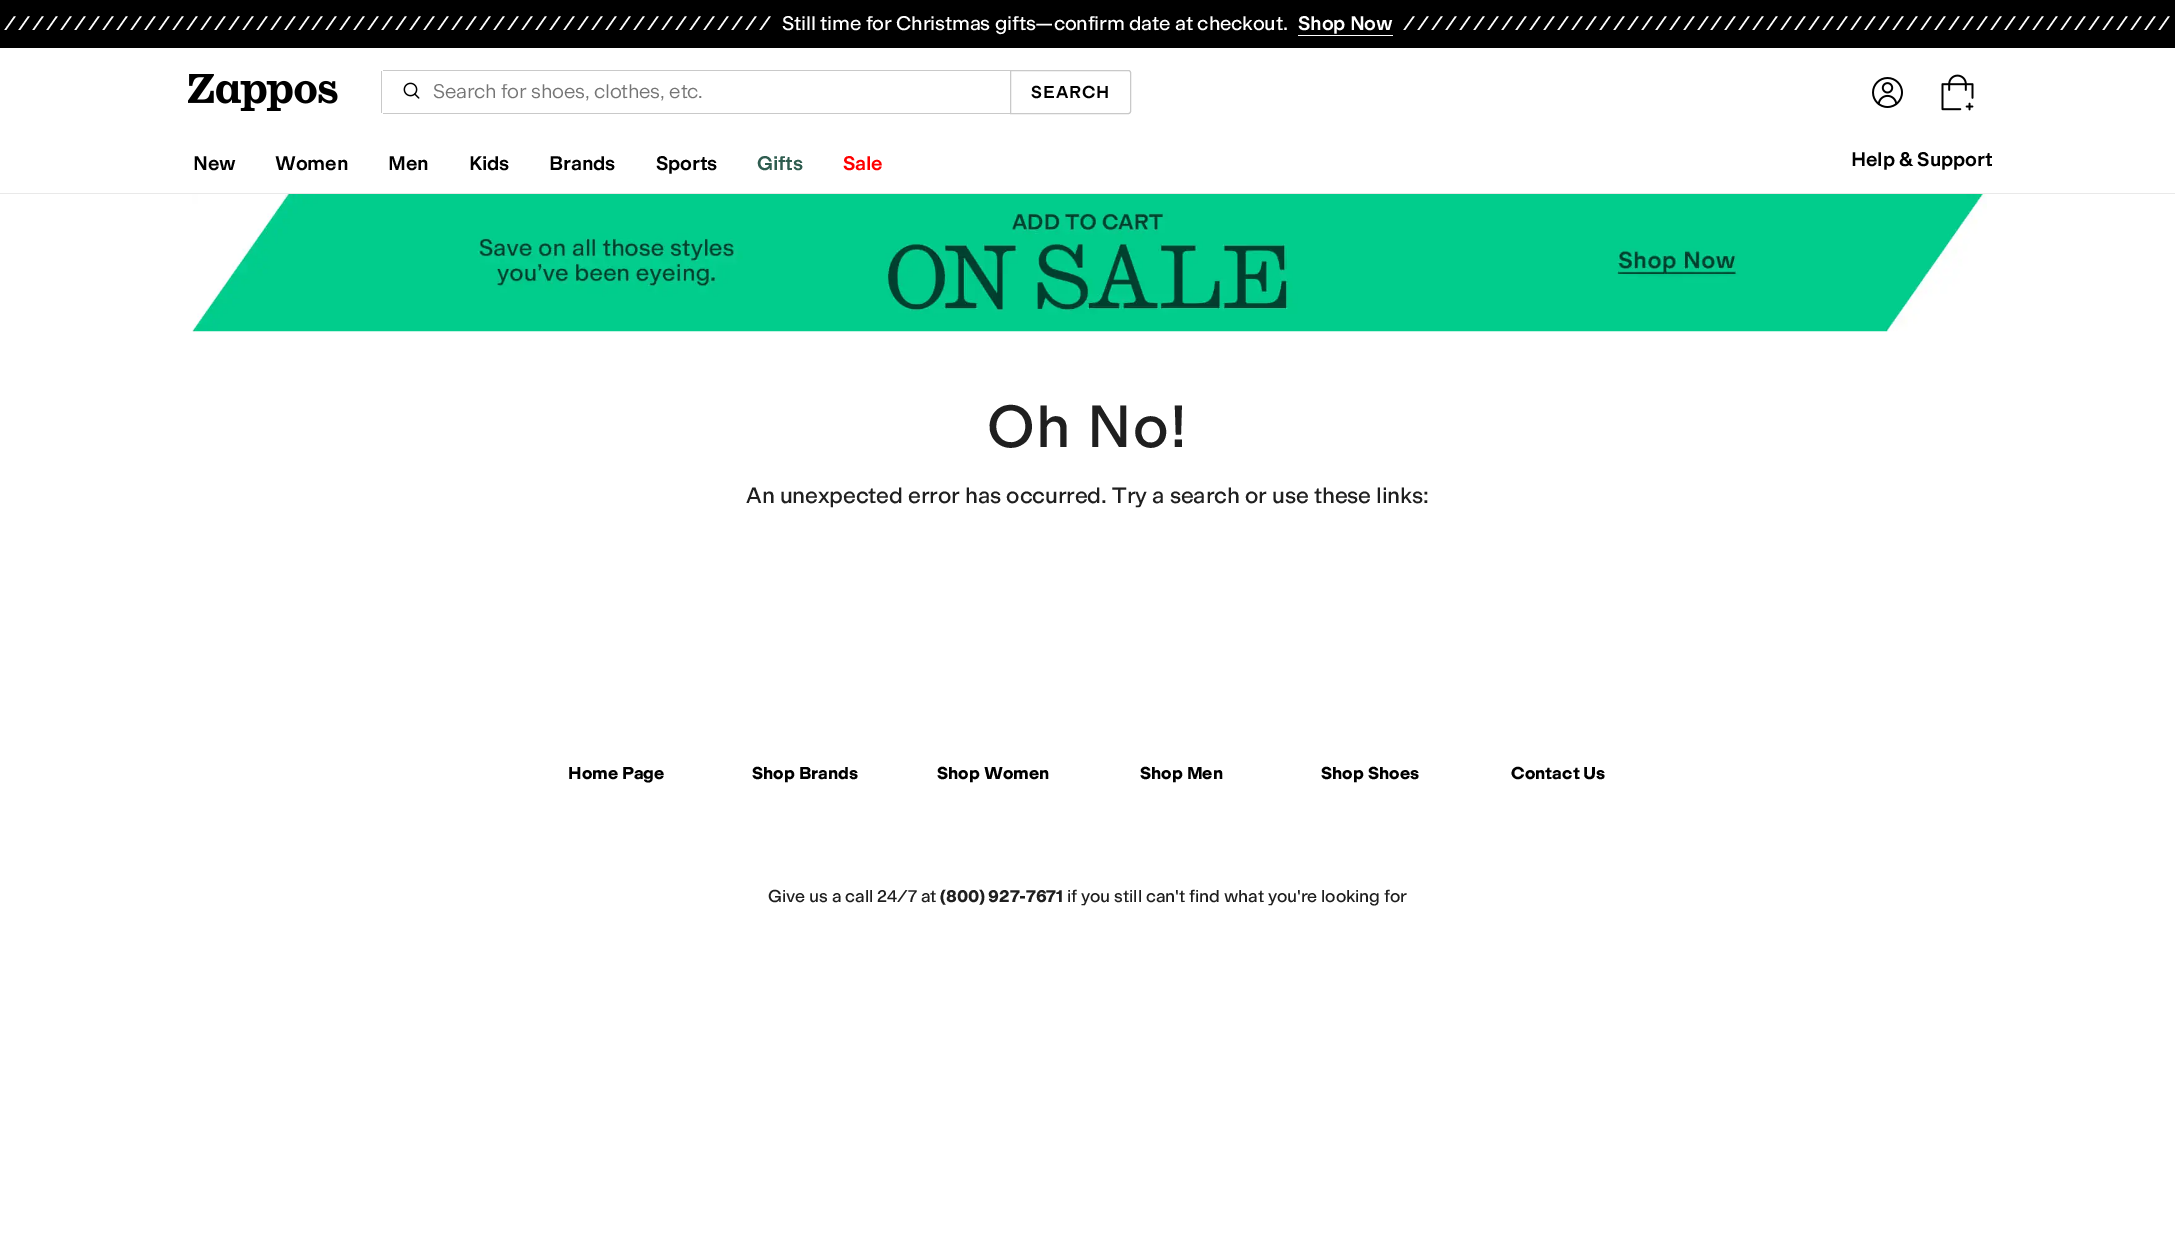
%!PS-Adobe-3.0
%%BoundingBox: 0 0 2175 1233
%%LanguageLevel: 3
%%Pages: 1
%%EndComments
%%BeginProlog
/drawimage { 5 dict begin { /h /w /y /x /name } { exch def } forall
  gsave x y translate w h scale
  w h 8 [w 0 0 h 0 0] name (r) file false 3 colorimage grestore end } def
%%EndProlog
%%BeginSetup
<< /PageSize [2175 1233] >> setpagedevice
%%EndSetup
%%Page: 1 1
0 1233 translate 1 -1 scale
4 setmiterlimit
1 setgray
0 0 2175 1233 rectfill
0 setgray
0 0 2175 48 rectfill
1 setgray
1298 35 95 1 rectfill
0.914 setgray
0 193 2175 1 rectfill
(images/1.raw) 188 74 150 37 drawimage
(images/2.raw) 403 82 17 17 drawimage
0.788 setgray
383 70 627 1 rectfill
383 113 627 1 rectfill
381 71 1 42 rectfill
newpath 1010.5 70.5 moveto 1128.5 70.5 lineto 1129.5 70.5 1130.5 71.5 1130.5 72.5 curveto 1130.5 111.5 lineto 1130.5 112.5 1129.5 113.5 1128.5 113.5 curveto 1010.5 113.5 lineto closepath stroke
(images/3.raw) 1872 77 31 31 drawimage
(images/4.raw) 1941 74 33 37 drawimage
(images/5.raw) 192 194 1795 138 drawimage
/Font-Regular [20 0 0 -20 0 0] selectfont
1 setgray
4 30 moveto 1.8 0 (///////////////////////////////////////////////////////) ashow
782 30 moveto -0.2 0 (Still time for Christmas gifts—confirm date at checkout.) ashow
/Font-Medium [20 0 0 -20 0 0] selectfont
1298 30 moveto -0.2 0 (Shop Now) ashow
/Font-Regular [20 0 0 -20 0 0] selectfont
1403 30 moveto 1.8 0 (///////////////////////////////////////////////////////) ashow
/Font-Light [20 0 0 -20 0 0] selectfont
0.459 setgray
433 98 moveto -0.2 0 (Search for shoes, clothes, etc.) ashow
/Font-Medium [17.5 0 0 -17.5 0 0] selectfont
0 setgray
1031 98 moveto 1 0 (SEARCH) ashow
/Font-Medium [20 0 0 -20 0 0] selectfont
193 170 moveto -0.15 0 (New) ashow
275 170 moveto -0.15 0 (Women) ashow
388 170 moveto -0.15 0 (Men) ashow
469 170 moveto -0.15 0 (Kids) ashow
549 170 moveto -0.15 0 (Brands) ashow
656 170 moveto -0.15 0 (Sports) ashow
0.184 0.365 0.314 setrgbcolor
757 170 moveto -0.15 0 (Gifts) ashow
1 0 0 setrgbcolor
843 170 moveto -0.15 0 (Sale) ashow
0 setgray
1851 166 moveto -0.15 0 (Help & Support) ashow
/Font-Regular [60 0 0 -60 0 0] selectfont
0.122 setgray
987 447 moveto 1.25 0 (Oh No!) ashow
/Font-Regular [22.5 0 0 -22.5 0 0] selectfont
746 503 moveto -0.15 0 (An unexpected error has occurred. Try a search or use these links:) ashow
/Font-Bold [17.5 0 0 -17.5 0 0] selectfont
0 setgray
568 779 moveto (Home Page) show
752 779 moveto (Shop Brands) show
937 779 moveto (Shop Women) show
1140 779 moveto (Shop Men) show
1321 779 moveto (Shop Shoes) show
1511 779 moveto (Contact Us) show
/Font-Regular [17.5 0 0 -17.5 0 0] selectfont
0.122 setgray
768 902 moveto -0.15 0 (Give us a call 24/7 at) ashow
/Font-Bold [17.5 0 0 -17.5 0 0] selectfont
940 902 moveto -0.15 0 (\(800\) 927-7671) ashow
/Font-Regular [17.5 0 0 -17.5 0 0] selectfont
1067 902 moveto -0.15 0 (if you still can't find what you're looking for) ashow
showpage
%%EOF
